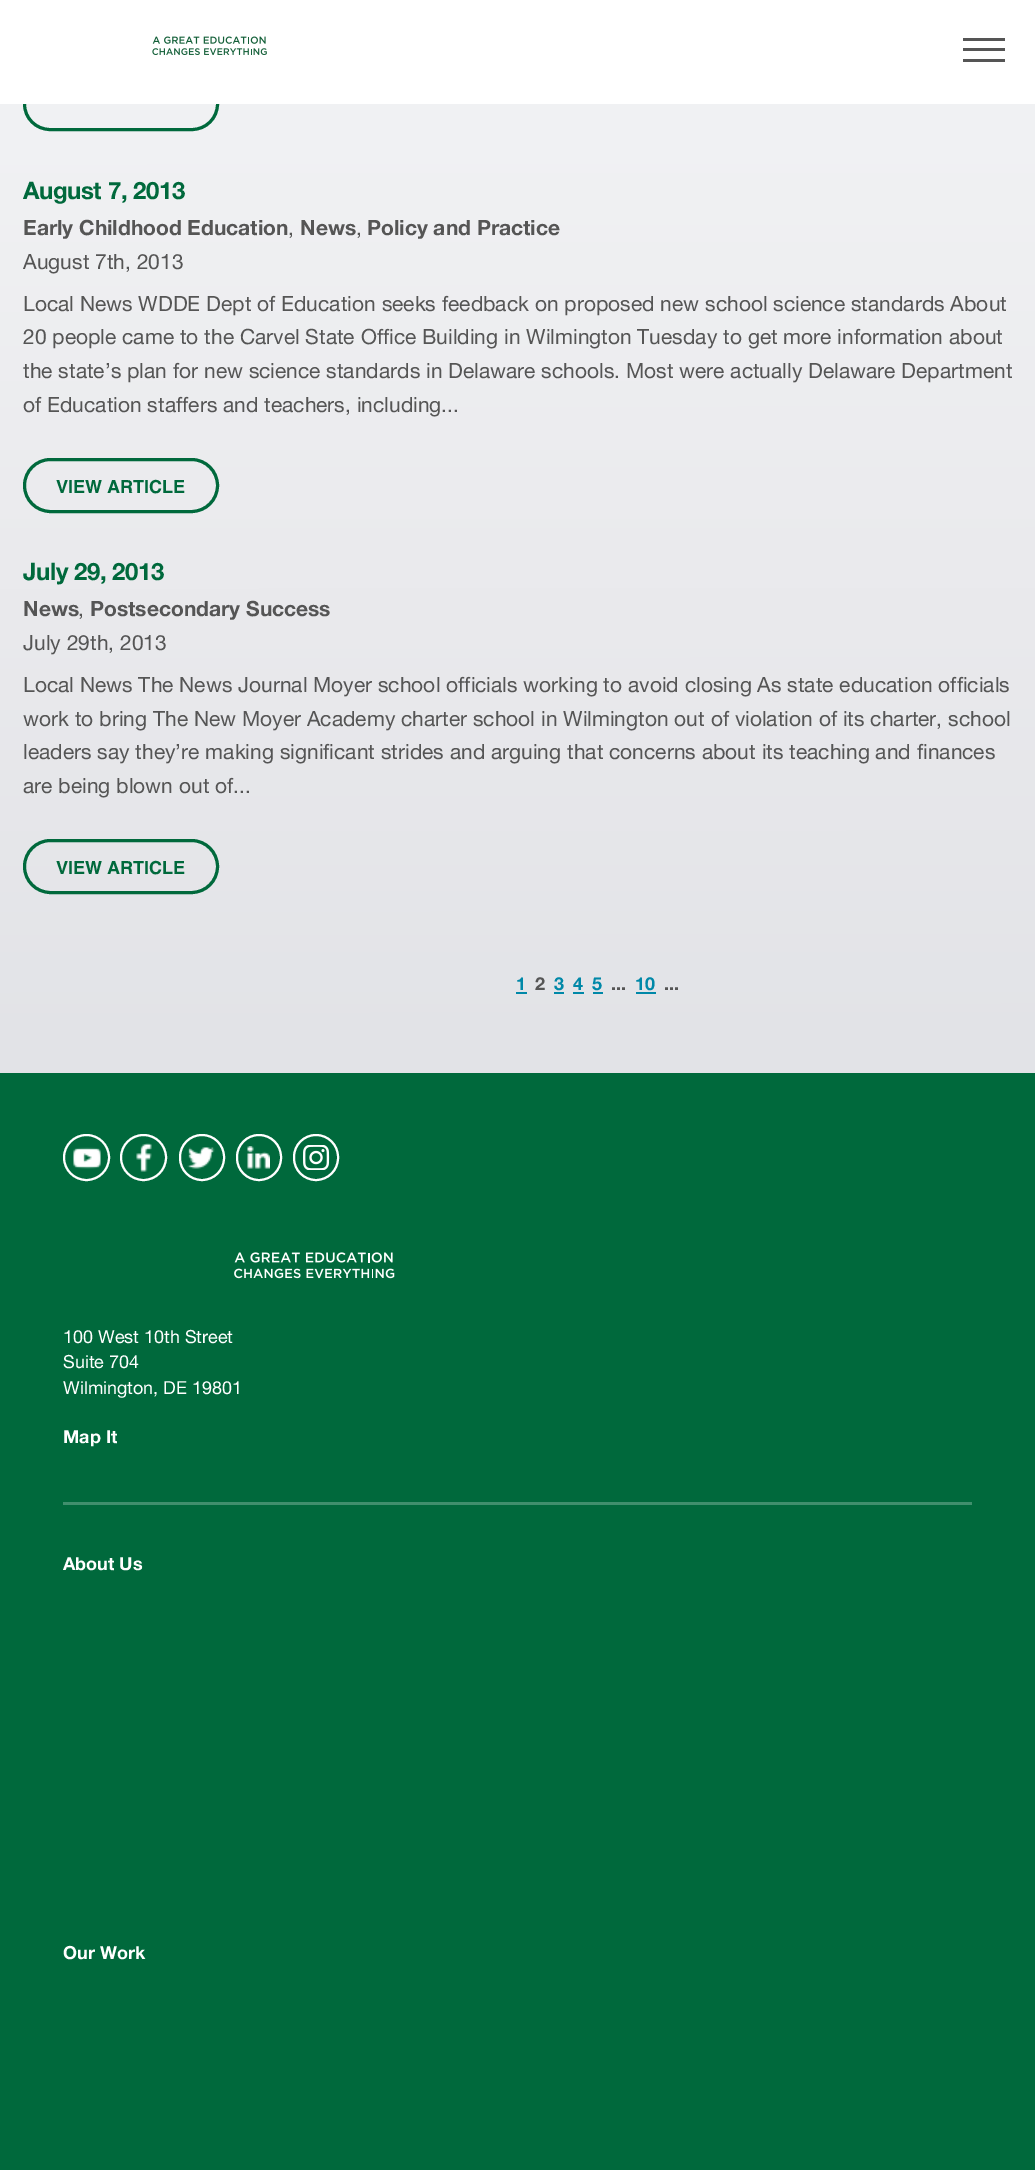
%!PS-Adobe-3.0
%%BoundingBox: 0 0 1035 2170
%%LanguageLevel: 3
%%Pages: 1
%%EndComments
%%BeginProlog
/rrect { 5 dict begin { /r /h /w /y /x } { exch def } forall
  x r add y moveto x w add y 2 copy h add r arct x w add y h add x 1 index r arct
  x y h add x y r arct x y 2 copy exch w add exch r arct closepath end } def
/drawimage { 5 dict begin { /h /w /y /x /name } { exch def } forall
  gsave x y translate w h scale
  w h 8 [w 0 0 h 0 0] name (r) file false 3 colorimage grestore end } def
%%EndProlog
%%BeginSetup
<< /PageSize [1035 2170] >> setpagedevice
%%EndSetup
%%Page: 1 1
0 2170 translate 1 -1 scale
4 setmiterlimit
0 0.412 0.235 setrgbcolor
0 0 1035 2170 rectfill
gsave newpath 0 104 moveto 1035 104 lineto 1035 1073 lineto 0 1073 lineto closepath clip newpath
<< /ShadingType 2 /ColorSpace /DeviceRGB /Coords [517 -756 518 1073] /Extend [true true] /Function << /FunctionType 2 /Domain [0 1] /C0 [1 1 1] /C1 [0.886 0.89 0.906] /N 1 >> >> shfill grestore
3 setlinewidth
24.5 78.5 193 51 25.5 rrect stroke
1 setgray
0 0 1035 104 rectfill
(images/1.raw) 152 36 115 19 drawimage
0.333 setgray
963 38 42 3 rectfill
963 48 42 3 rectfill
963 59 42 3 rectfill
0 0.412 0.235 setrgbcolor
24.5 459.5 193 52 26 rrect stroke
24.5 840.5 193 52 26 rrect stroke
0 0.533 0.659 setrgbcolor
516 992 11 2 rectfill
554 992 10 2 rectfill
573 992 11 2 rectfill
593 992 10 2 rectfill
636 992 20 2 rectfill
1 setgray
2 setlinewidth
newpath 86.5 1157.5 22.5 0 360 arc closepath stroke
(images/2.raw) 73 1147 28 22 drawimage
newpath 143.5 1157.5 22.5 0 360 arc closepath stroke
(images/3.raw) 136 1143 16 29 drawimage
180 1135 44 45 22 rrect stroke
(images/4.raw) 187 1147 28 22 drawimage
237 1135 44 45 22 rrect stroke
(images/5.raw) 247 1146 23 23 drawimage
294 1135 44 45 22 rrect stroke
(images/6.raw) 303 1145 27 25 drawimage
(images/7.raw) 234 1252 161 27 drawimage
0.251 0.561 0.427 setrgbcolor
63 1502 909 3 rectfill
/HelveticaNeue-Bold [24 0 0 -24 0 0] selectfont
0 0.412 0.235 setrgbcolor
23 199 moveto -0.4 0 (August 7, 2013) ashow
/HelveticaNeue-Bold [21 0 0 -21 0 0] selectfont
0.333 setgray
23 235 moveto (Early Childhood Education) show
/HelveticaNeue-Regular [21 0 0 -21 0 0] selectfont
288 235 moveto (,) show
/HelveticaNeue-Bold [21 0 0 -21 0 0] selectfont
300 235 moveto (News) show
/HelveticaNeue-Regular [21 0 0 -21 0 0] selectfont
356 235 moveto (,) show
/HelveticaNeue-Bold [21 0 0 -21 0 0] selectfont
367 235 moveto (Policy and Practice) show
/HelveticaNeue-Regular [21 0 0 -21 0 0] selectfont
23 269 moveto (August 7th, 2013) show
23 311 moveto (Local News WDDE Dept of Education seeks feedback on proposed new school science standards About) show
23 344 moveto (20 people came to the Carvel State Office Building in Wilmington Tuesday to get more information about) show
23 378 moveto (the state’s plan for new science standards in Delaware schools. Most were actually Delaware Department) show
23 412 moveto (of Education staffers and teachers, including...) show
/Helvetica-Regular [18 0 0 -18 0 0] selectfont
0 0.412 0.235 setrgbcolor
56 493 moveto (VIEW ARTICLE) show
/HelveticaNeue-Bold [24 0 0 -24 0 0] selectfont
23 580 moveto -0.4 0 (July 29, 2013) ashow
/HelveticaNeue-Bold [21 0 0 -21 0 0] selectfont
0.333 setgray
23 616 moveto (News) show
/HelveticaNeue-Regular [21 0 0 -21 0 0] selectfont
78 616 moveto (,) show
/HelveticaNeue-Bold [21 0 0 -21 0 0] selectfont
90 616 moveto (Postsecondary Success) show
/HelveticaNeue-Regular [21 0 0 -21 0 0] selectfont
23 650 moveto (July 29th, 2013) show
23 692 moveto (Local News The News Journal Moyer school officials working to avoid closing As state education officials) show
23 726 moveto (work to bring The New Moyer Academy charter school in Wilmington out of violation of its charter, school) show
23 759 moveto (leaders say they’re making significant strides and arguing that concerns about its teaching and finances) show
23 793 moveto (are being blown out of...) show
/Helvetica-Regular [18 0 0 -18 0 0] selectfont
0 0.412 0.235 setrgbcolor
56 874 moveto (VIEW ARTICLE) show
/HelveticaNeue-Bold [18 0 0 -18 0 0] selectfont
0 0.533 0.659 setrgbcolor
516 990 moveto (1) show
0.333 setgray
535 990 moveto (2) show
0 0.533 0.659 setrgbcolor
554 990 moveto (3) show
573 990 moveto (4) show
592 990 moveto (5) show
0.333 setgray
611 990 moveto (...) show
0 0.533 0.659 setrgbcolor
635 990 moveto (10) show
0.333 setgray
664 990 moveto (...) show
/HelveticaNeue-Regular [18 0 0 -18 0 0] selectfont
1 setgray
63 1343 moveto (100 West 10th Street) show
63 1368 moveto (Suite 704) show
63 1394 moveto (Wilmington, DE 19801) show
/HelveticaNeue-Bold [18 0 0 -18 0 0] selectfont
63 1443 moveto (Map It) show
63 1570 moveto (About Us) show
63 1959 moveto (Our Work) show
showpage
%%EOF
